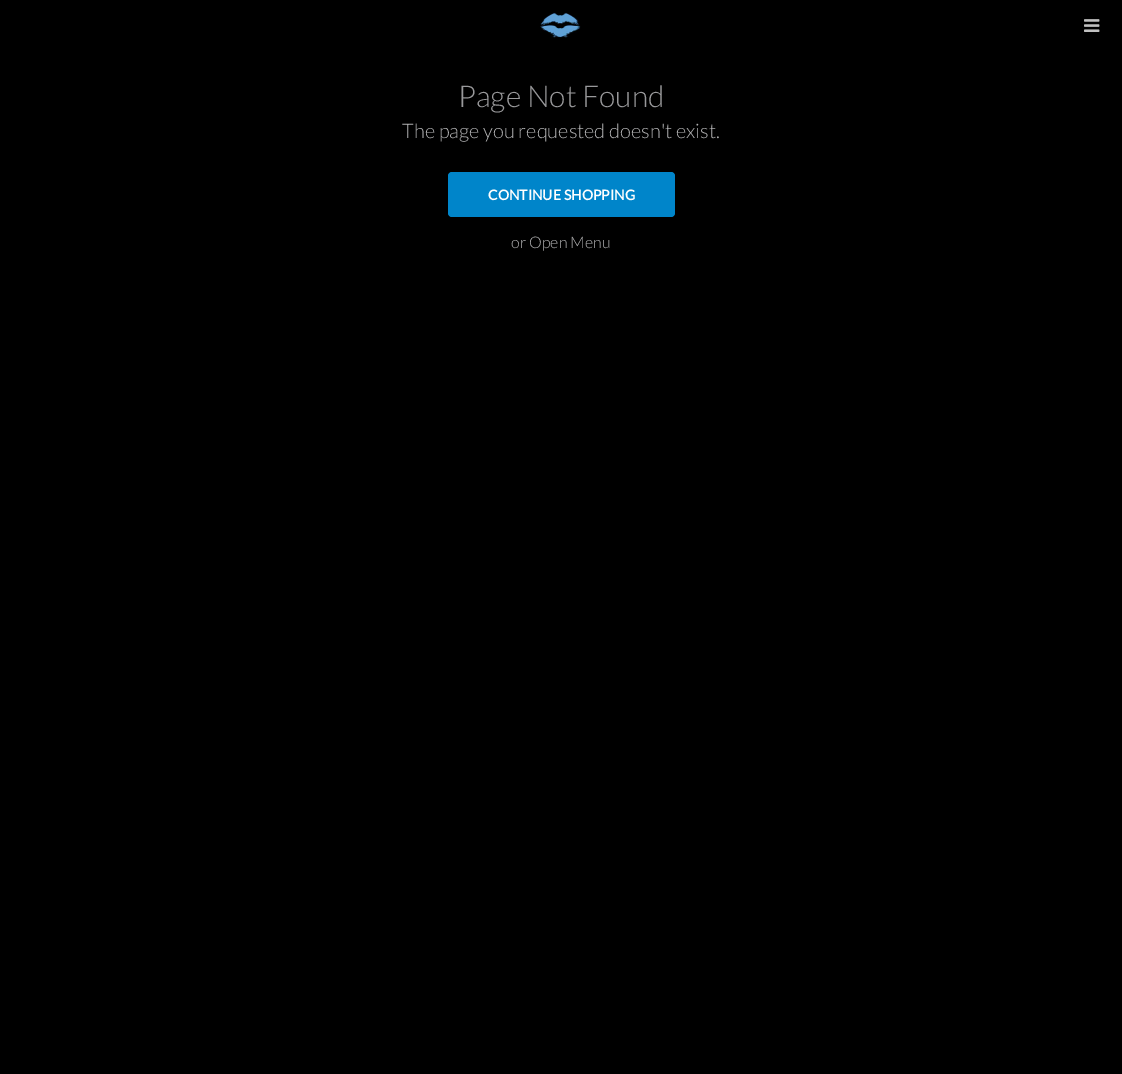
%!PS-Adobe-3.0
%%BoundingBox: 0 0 1122 1074
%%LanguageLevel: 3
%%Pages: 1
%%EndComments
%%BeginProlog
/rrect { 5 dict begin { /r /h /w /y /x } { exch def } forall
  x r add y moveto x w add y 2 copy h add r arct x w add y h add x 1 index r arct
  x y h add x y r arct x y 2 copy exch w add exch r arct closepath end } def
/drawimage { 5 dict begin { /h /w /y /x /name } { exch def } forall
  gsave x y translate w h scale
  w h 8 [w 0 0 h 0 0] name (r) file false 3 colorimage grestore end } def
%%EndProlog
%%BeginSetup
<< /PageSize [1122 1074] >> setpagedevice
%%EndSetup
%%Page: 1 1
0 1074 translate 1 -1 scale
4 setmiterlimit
0 setgray
0 0 1122 1074 rectfill
(images/1.raw) 540 12 41 26 drawimage
(images/2.raw) 1084 19 16 13 drawimage
0 0.522 0.792 setrgbcolor
448 172 227 45 4 rrect fill
/Lato-Light [30 0 0 -30 0 0] selectfont
0.6 0.6 0.608 setrgbcolor
458 107 moveto (Page Not Found) show
/Lato-Light [20 0 0 -20 0 0] selectfont
0.702 0.702 0.706 setrgbcolor
402 138 moveto (The page you requested doesn't exist.) show
/Lato-Bold [14 0 0 -14 0 0] selectfont
1 setgray
488 200 moveto (CONTINUE SHOPPING) show
/Lato-Light [16 0 0 -16 0 0] selectfont
0.702 0.702 0.706 setrgbcolor
511 248 moveto (or Open Menu) show
showpage
%%EOF
